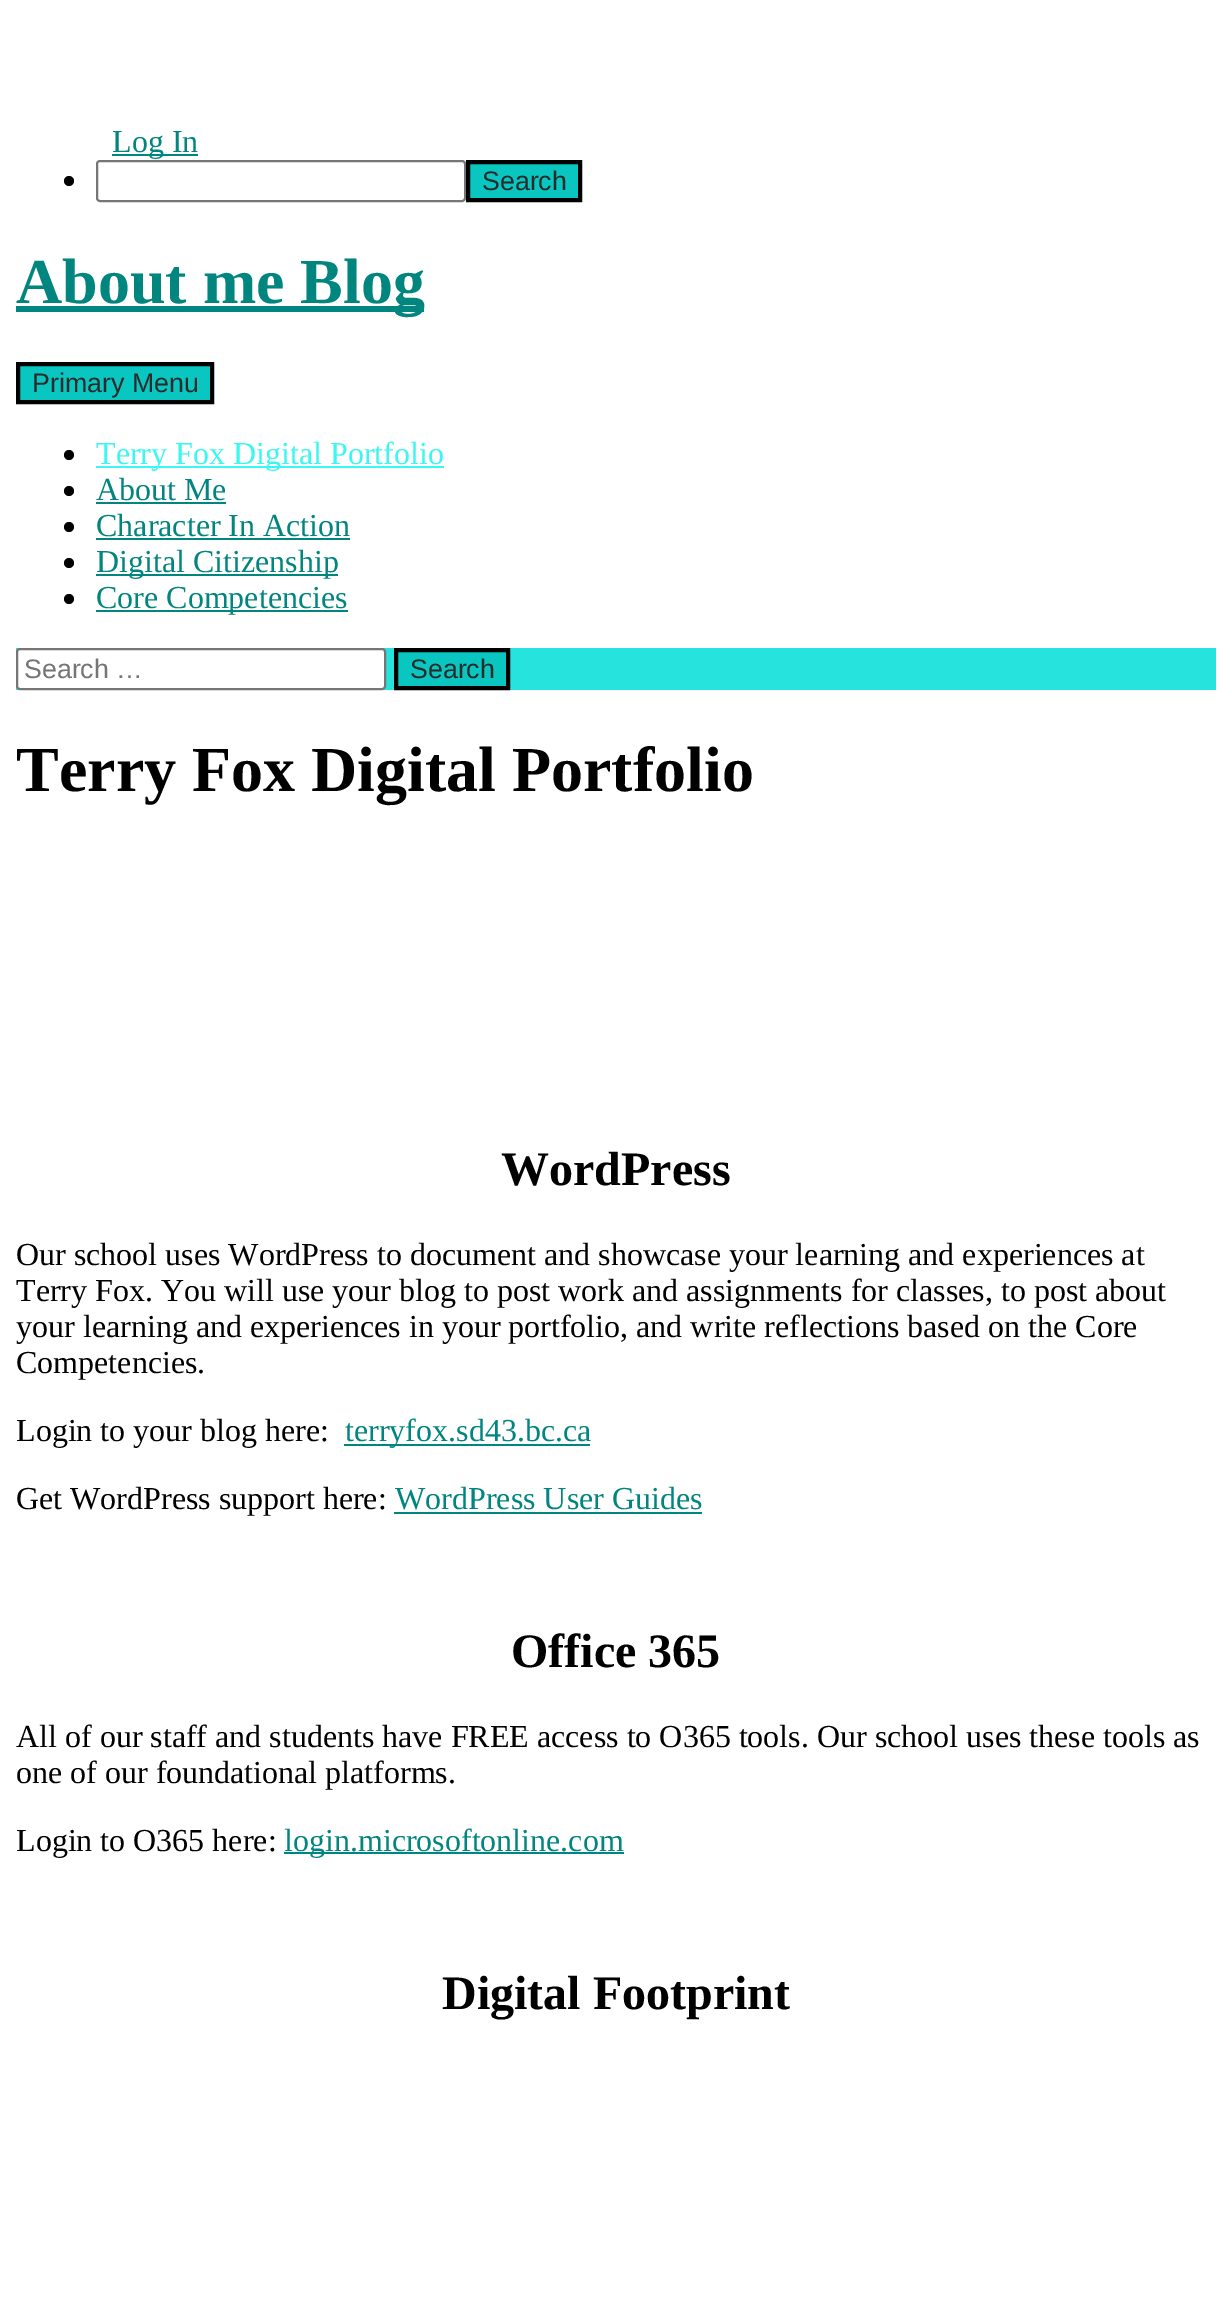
%!PS-Adobe-3.0
%%BoundingBox: 0 0 1232 2322
%%LanguageLevel: 3
%%Pages: 1
%%EndComments
%%BeginProlog
/rrect { 5 dict begin { /r /h /w /y /x } { exch def } forall
  x r add y moveto x w add y 2 copy h add r arct x w add y h add x 1 index r arct
  x y h add x y r arct x y 2 copy exch w add exch r arct closepath end } def
%%EndProlog
%%BeginSetup
<< /PageSize [1232 2322] >> setpagedevice
%%EndSetup
%%Page: 1 1
0 2322 translate 1 -1 scale
4 setmiterlimit
1 setgray
0 0 1232 2322 rectfill
0 0.522 0.498 setrgbcolor
112 154 86 2 rectfill
0 setgray
newpath 69 181 5 0 360 arc closepath fill
0.463 setgray
2 setlinewidth
97 161 368 40 3 rrect stroke
0.035 0.776 0.753 setrgbcolor
newpath 468 162 moveto 580 162 lineto 580 200 lineto 468 200 lineto closepath gsave fill grestore
0 setgray
4 setlinewidth
stroke
0 0.522 0.498 setrgbcolor
16 306 408 6 rectfill
0.035 0.776 0.753 setrgbcolor
newpath 18 364 moveto 212 364 lineto 212 402 lineto 18 402 lineto closepath gsave fill grestore
0 setgray
stroke
newpath 69 455 5 0 360 arc closepath fill
0.227 0.969 0.945 setrgbcolor
96 466 348 2 rectfill
0 setgray
newpath 69 491 5 0 360 arc closepath fill
0 0.522 0.498 setrgbcolor
96 502 130 2 rectfill
0 setgray
newpath 69 527 5 0 360 arc closepath fill
0 0.522 0.498 setrgbcolor
96 538 254 2 rectfill
0 setgray
newpath 69 563 5 0 360 arc closepath fill
0 0.522 0.498 setrgbcolor
96 574 242 2 rectfill
0 setgray
newpath 69 599 5 0 360 arc closepath fill
0 0.522 0.498 setrgbcolor
96 610 252 2 rectfill
0.149 0.89 0.867 setrgbcolor
16 648 1200 42 rectfill
1 setgray
17 649 368 40 3 rrect gsave fill grestore
0.463 setgray
2 setlinewidth
stroke
0.035 0.776 0.753 setrgbcolor
newpath 396 650 moveto 508 650 lineto 508 688 lineto 396 688 lineto closepath gsave fill grestore
0 setgray
4 setlinewidth
stroke
0 0.522 0.498 setrgbcolor
344 1444 246 2 rectfill
394 1512 308 2 rectfill
284 1852 340 2 rectfill
/LiberationSerif-Regular [32 0 0 -32 0 0] selectfont
112 152 moveto (Log In) show
/LiberationSans-Regular [26.75 0 0 -26.75 0 0] selectfont
0.169 setgray
482 190 moveto (Search) show
/LiberationSerif-Bold [64 0 0 -64 0 0] selectfont
0 0.522 0.498 setrgbcolor
16 303 moveto (About me Blog) show
/LiberationSans-Regular [26.75 0 0 -26.75 0 0] selectfont
0.169 setgray
32 392 moveto (Primary Menu) show
/LiberationSerif-Regular [32 0 0 -32 0 0] selectfont
0.227 0.969 0.945 setrgbcolor
96 464 moveto (Terry Fox Digital Portfolio) show
0 0.522 0.498 setrgbcolor
96 500 moveto (About Me) show
96 536 moveto (Character In Action) show
96 572 moveto (Digital Citizenship) show
96 608 moveto (Core Competencies) show
/LiberationSans-Regular [26.75 0 0 -26.75 0 0] selectfont
0.459 setgray
24 678 moveto (Search …) show
0.169 setgray
410 678 moveto (Search) show
/LiberationSerif-Bold [64 0 0 -64 0 0] selectfont
0 setgray
16 791 moveto (Terry Fox Digital Portfolio) show
/LiberationSerif-Bold [48 0 0 -48 0 0] selectfont
501 1185 moveto (WordPress) show
/LiberationSerif-Regular [32 0 0 -32 0 0] selectfont
16 1265 moveto (Our school uses WordPress to document and showcase your learning and experiences at) show
16 1301 moveto (Terry Fox. You will use your blog to post work and assignments for classes, to post about) show
16 1337 moveto (your learning and experiences in your portfolio, and write reflections based on the Core) show
16 1373 moveto (Competencies.) show
16 1441 moveto (Login to your blog here:) show
0 0.522 0.498 setrgbcolor
345 1441 moveto (terryfox.sd43.bc.ca) show
0 setgray
16 1509 moveto (Get WordPress support here:) show
0 0.522 0.498 setrgbcolor
395 1509 moveto (WordPress User Guides) show
/LiberationSerif-Bold [48 0 0 -48 0 0] selectfont
0 setgray
511 1667 moveto (Office 365) show
/LiberationSerif-Regular [32 0 0 -32 0 0] selectfont
16 1747 moveto (All of our staff and students have FREE access to O365 tools. Our school uses these tools as) show
16 1783 moveto (one of our foundational platforms.) show
16 1851 moveto (Login to O365 here:) show
0 0.522 0.498 setrgbcolor
284 1851 moveto (login.microsoftonline.com) show
/LiberationSerif-Bold [48 0 0 -48 0 0] selectfont
0 setgray
442 2009 moveto (Digital Footprint) show
showpage
%%EOF
